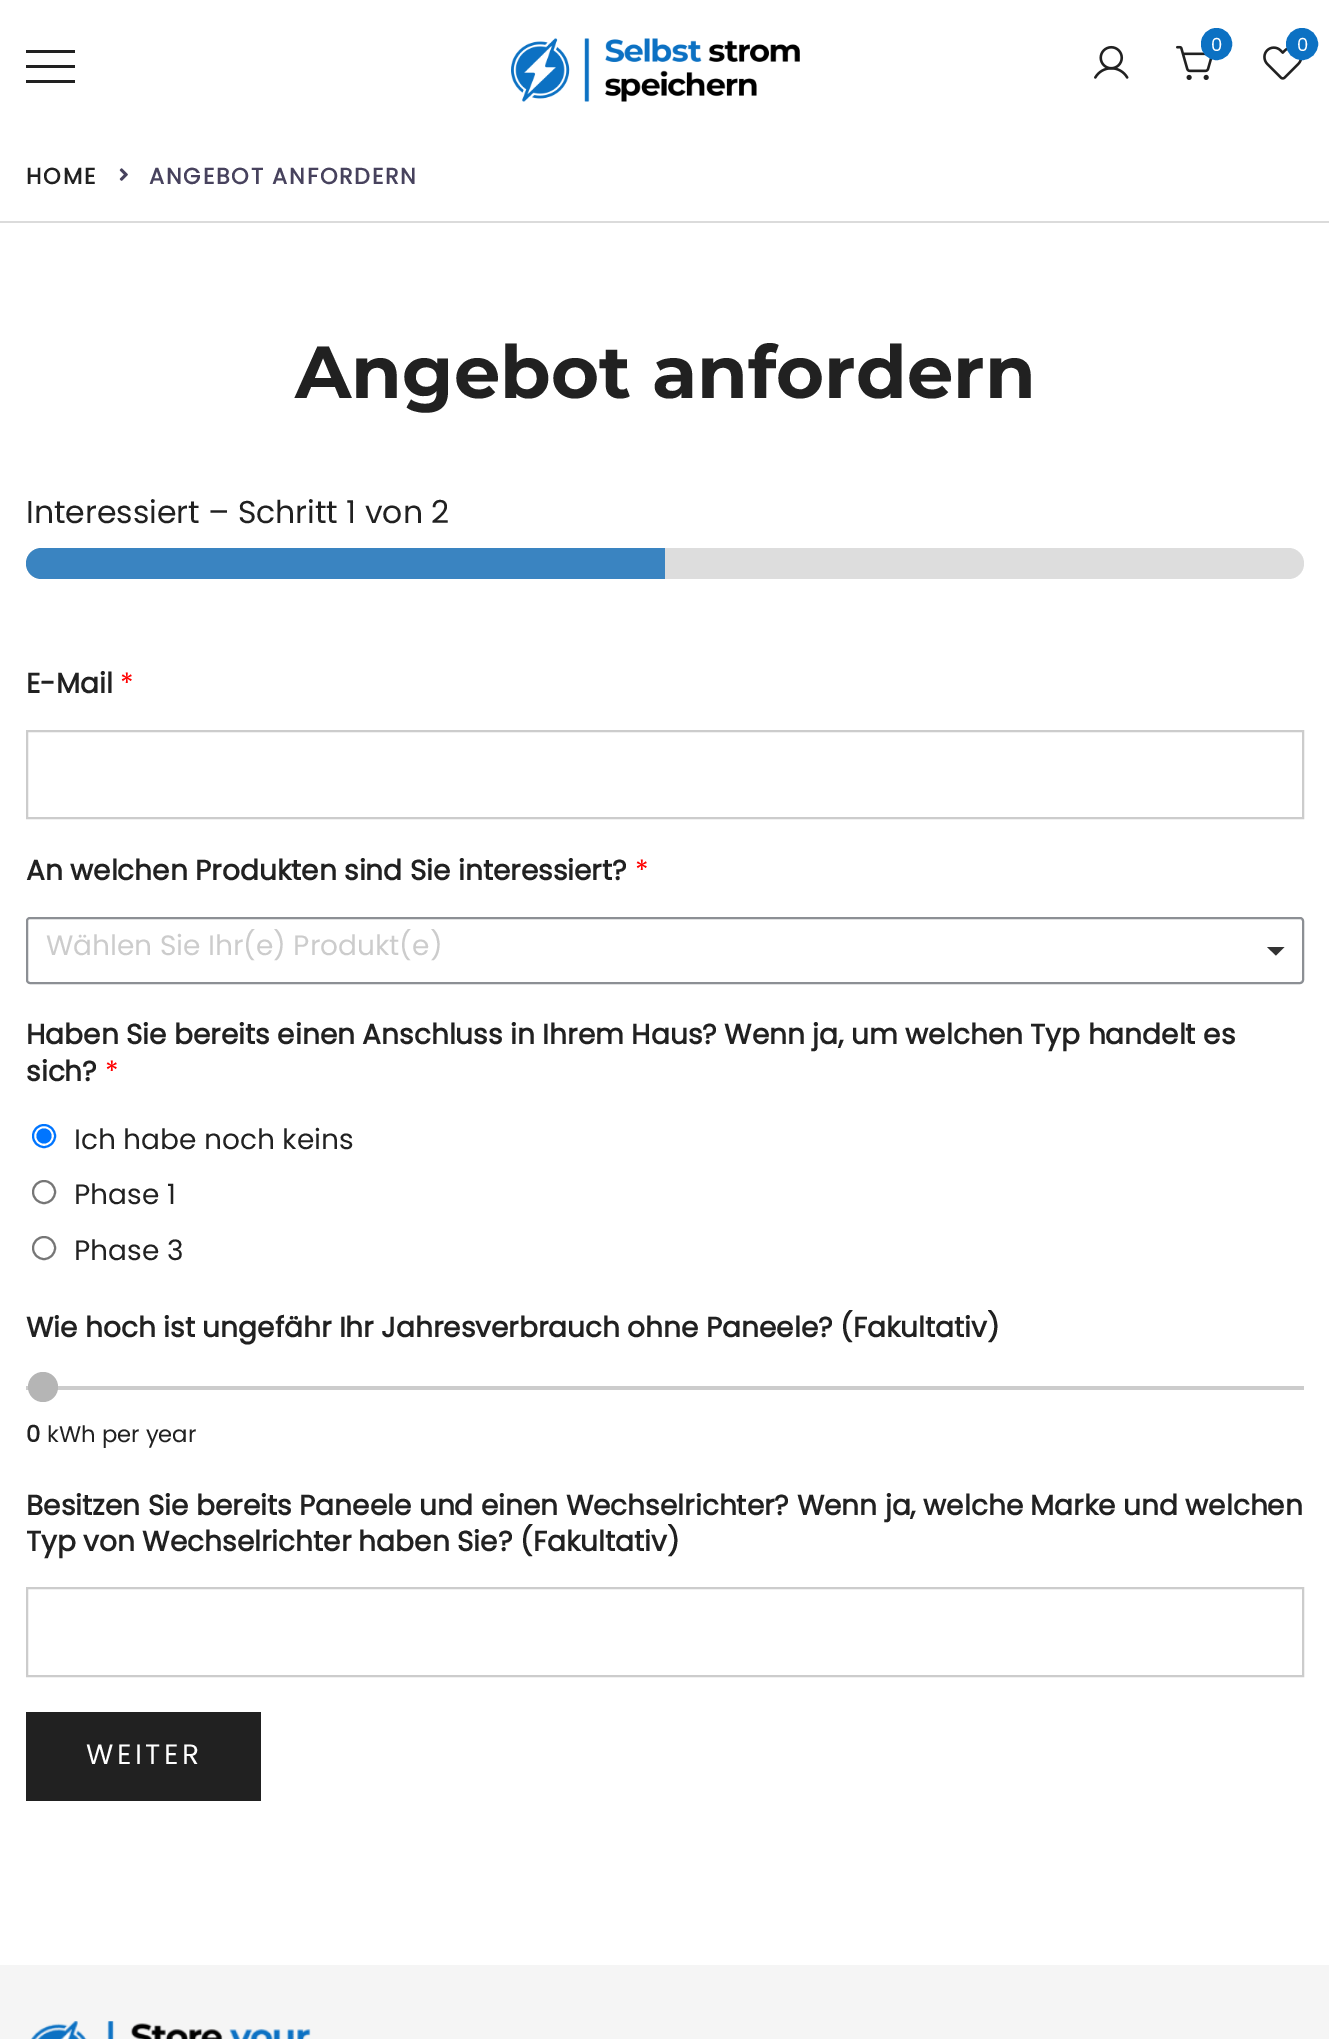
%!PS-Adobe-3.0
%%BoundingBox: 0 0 1329 2039
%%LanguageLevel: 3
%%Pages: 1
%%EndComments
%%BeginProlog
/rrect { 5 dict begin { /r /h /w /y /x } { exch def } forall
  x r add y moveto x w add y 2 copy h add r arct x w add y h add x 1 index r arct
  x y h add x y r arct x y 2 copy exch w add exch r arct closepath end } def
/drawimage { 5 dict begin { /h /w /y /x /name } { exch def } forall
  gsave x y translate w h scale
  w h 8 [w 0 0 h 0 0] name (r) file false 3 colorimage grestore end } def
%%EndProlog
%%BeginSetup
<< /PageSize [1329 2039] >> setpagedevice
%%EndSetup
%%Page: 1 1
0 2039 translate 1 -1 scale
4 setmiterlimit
1 setgray
0 0 1329 2039 rectfill
(images/1.raw) 511 38 289 64 drawimage
(images/2.raw) 1094 45 35 34 drawimage
(images/3.raw) 1176 45 37 35 drawimage
0.047 0.443 0.765 setrgbcolor
1202 29 29 30 14.5 rrect gsave fill grestore
2 setlinewidth
stroke
(images/4.raw) 1263 46 40 34 drawimage
newpath 1302 44 15 0 360 arc closepath gsave fill grestore
stroke
0.129 setgray
26 50 49 3 rectfill
26 65 49 3 rectfill
26 80 49 3 rectfill
0.859 setgray
0 221 1329 2 rectfill
(images/5.raw) 119 168 9 13 drawimage
0.867 setgray
26 548 1278 31 15.5 rrect fill
0.227 0.518 0.757 setrgbcolor
newpath 41.5 548 moveto 665 548 lineto 665 579 lineto 41.5 579 lineto 33 579 26 572 26 563.5 curveto 26 555 33 548 41.5 548 curveto closepath fill
0.8 setgray
27 731 1276 87 rectstroke
0.549 0.561 0.58 setrgbcolor
27 918 1276 65 3 rrect stroke
0.2 setgray
newpath 1267 947 moveto 1284.5 947 lineto 1276 955.5 lineto closepath fill
0 0.459 1 setrgbcolor
newpath 44 1136 11 0 360 arc closepath stroke
newpath 44 1136 7.5 0 360 arc closepath fill
0.463 setgray
newpath 44 1192 11 0 360 arc closepath stroke
newpath 44 1248 11 0 360 arc closepath stroke
0.8 setgray
26 1386 1278 4 rectfill
0.71 setgray
newpath 43 1387 15 0 360 arc closepath fill
0.8 setgray
27 1588 1276 88 rectstroke
0.129 setgray
26 1712 235 89 rectfill
0.961 setgray
0 1965 1329 74 rectfill
(images/6.raw) 30 2021 281 18 drawimage
/Poppins-Regular [18 0 0 -18 0 0] selectfont
1 setgray
1211 51 moveto (0) show
1297 51 moveto (0) show
/Poppins-Bold [22.4 0 0 -22.4 0 0] selectfont
0.129 setgray
26 184 moveto 1.75 0 (HOME) ashow
0.278 0.259 0.365 setrgbcolor
149 184 moveto 1.75 0 (ANGEBOT ANFORDERN) ashow
/Montserrat-Thin [73.5 0 0 -73.5 0 0] selectfont
0.129 setgray
295 398 moveto (Angebot anfordern) show
/Poppins-Regular [31.5 0 0 -31.5 0 0] selectfont
26 523 moveto (Interessiert – Schritt 1 von 2) show
/Poppins-Bold [28 0 0 -28 0 0] selectfont
26 693 moveto (E-Mail) show
/Poppins-Regular [28 0 0 -28 0 0] selectfont
1 0 0 setrgbcolor
120 693 moveto (*) show
/Poppins-Bold [28 0 0 -28 0 0] selectfont
0.129 setgray
26 880 moveto (An welchen Produkten sind Sie interessiert?) show
/Poppins-Regular [28 0 0 -28 0 0] selectfont
1 0 0 setrgbcolor
635 880 moveto (*) show
gsave
46 929 1207 37 rectclip
0.8 setgray
46 955 moveto (Wählen Sie Ihr\(e\) Produkt\(e\)) show
grestore
/Poppins-Bold [28 0 0 -28 0 0] selectfont
0.129 setgray
26 1044 moveto (Haben Sie bereits einen Anschluss in Ihrem Haus? Wenn ja, um welchen Typ handelt es) show
26 1081 moveto (sich?) show
/Poppins-Regular [28 0 0 -28 0 0] selectfont
1 0 0 setrgbcolor
105 1081 moveto (*) show
0.129 setgray
74 1149 moveto (Ich habe noch keins) show
74 1204 moveto (Phase 1) show
74 1260 moveto (Phase 3) show
/Poppins-Bold [28 0 0 -28 0 0] selectfont
26 1337 moveto (Wie hoch ist ungefähr Ihr Jahresverbrauch ohne Paneele? \(Fakultativ\)) show
/Poppins-Bold [22.75 0 0 -22.75 0 0] selectfont
26 1442 moveto (0) show
/Poppins-Regular [22.75 0 0 -22.75 0 0] selectfont
47 1442 moveto (kWh per year) show
/Poppins-Bold [28 0 0 -28 0 0] selectfont
26 1515 moveto (Besitzen Sie bereits Paneele und einen Wechselrichter? Wenn ja, welche Marke und welchen) show
26 1551 moveto (Typ von Wechselrichter haben Sie? \(Fakultativ\)) show
/Poppins-Regular [28 0 0 -28 0 0] selectfont
1 setgray
86 1764 moveto 3.5 0 (WEITER) ashow
showpage
%%EOF
